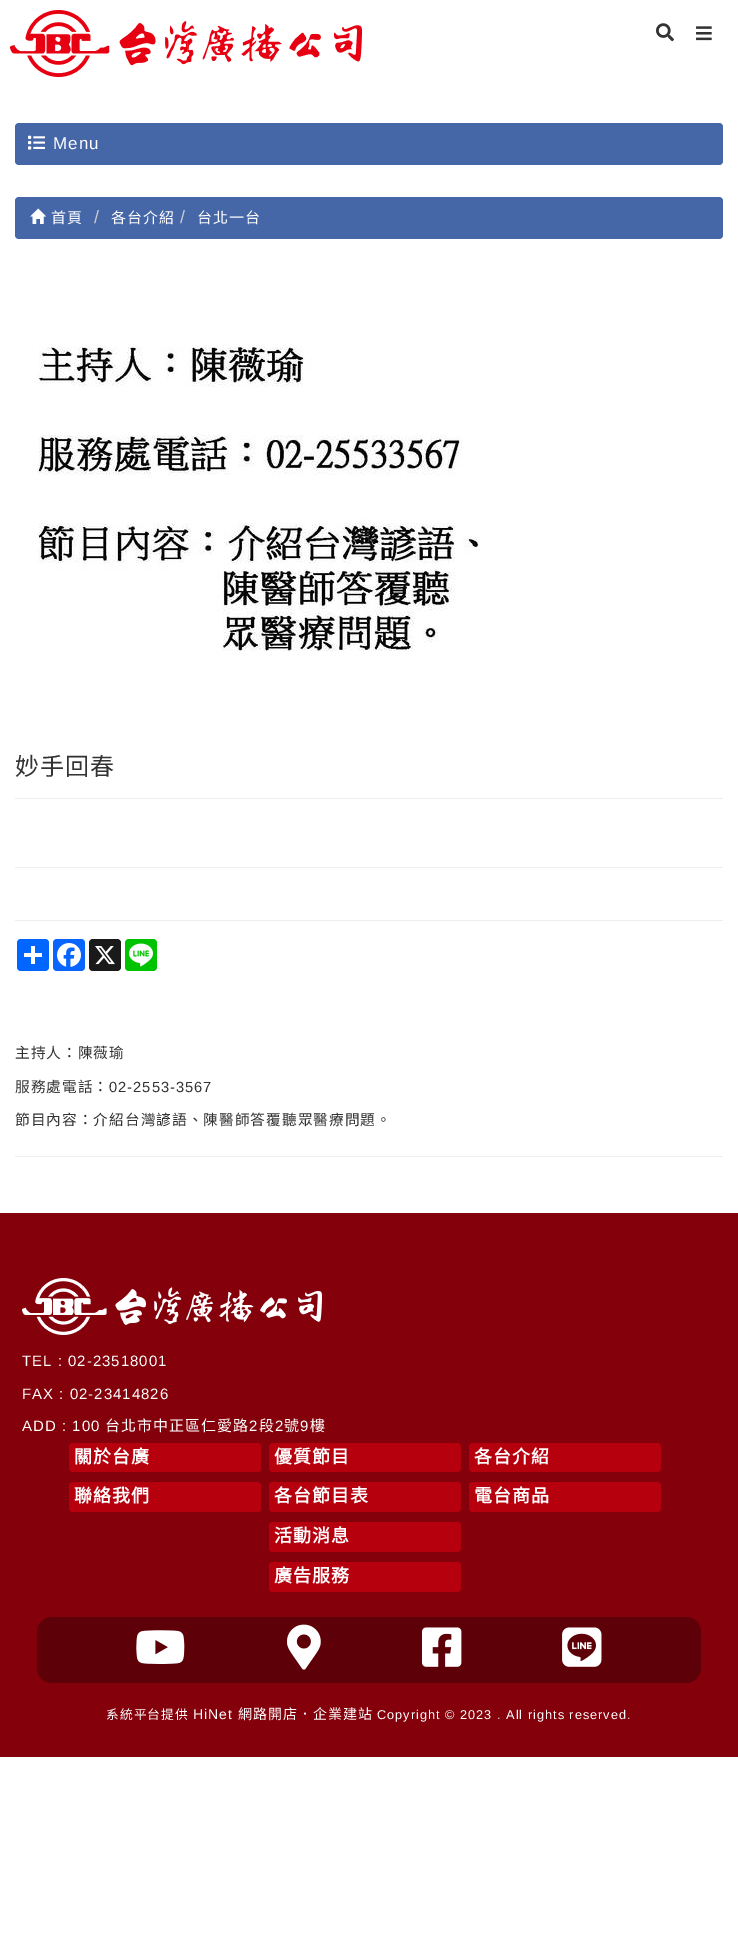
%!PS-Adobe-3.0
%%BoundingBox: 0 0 738 1944
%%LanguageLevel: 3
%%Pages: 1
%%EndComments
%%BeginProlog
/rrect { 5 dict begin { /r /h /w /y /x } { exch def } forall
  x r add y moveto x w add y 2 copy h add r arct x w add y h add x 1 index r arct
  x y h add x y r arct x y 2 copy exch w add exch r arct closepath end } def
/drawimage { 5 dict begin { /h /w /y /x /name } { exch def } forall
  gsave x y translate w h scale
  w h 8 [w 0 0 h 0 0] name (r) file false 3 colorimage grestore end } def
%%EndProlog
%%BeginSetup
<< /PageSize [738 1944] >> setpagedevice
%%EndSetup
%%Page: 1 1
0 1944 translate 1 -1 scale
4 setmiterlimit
1 setgray
0 0 738 1944 rectfill
(images/1.raw) 10 10 352 67 drawimage
(images/2.raw) 656 23 18 19 drawimage
(images/3.raw) 696 26 16 15 drawimage
0.271 0.404 0.659 setrgbcolor
15 123 708 42 4 rrect fill
(images/4.raw) 28 135 17 15 drawimage
15 197 708 42 4 rrect fill
(images/5.raw) 30 208 16 16 drawimage
(images/6.raw) 37 345 443 306 drawimage
0.933 setgray
15 798 708 1 rectfill
15 867 708 1 rectfill
15 920 708 1 rectfill
0.004 0.4 1 setrgbcolor
17 939 32 32 4 rrect fill
1 setgray
31 946 4 18 rectfill
24 953 18 4 rectfill
0.031 0.4 1 setrgbcolor
53 939 32 32 4 rrect fill
(images/7.raw) 57 943 24 24 drawimage
0.102 setgray
89 939 32 32 4 rrect fill
(images/8.raw) 95 946 20 19 drawimage
0 0.765 0 setrgbcolor
125 939 32 32 4 rrect fill
(images/9.raw) 129 943 24 24 drawimage
0.933 setgray
15 1156 708 1 rectfill
0.518 0 0.039 setrgbcolor
0 1213 738 544 rectfill
(images/10.raw) 22 1278 300 57 drawimage
0.718 0 0.055 setrgbcolor
69 1443 192 29 4 rrect fill
69 1482 192 30 4 rrect fill
269 1443 192 29 4 rrect fill
269 1482 192 30 4 rrect fill
469 1443 192 29 4 rrect fill
469 1482 192 30 4 rrect fill
269 1522 192 30 4 rrect fill
269 1562 192 30 4 rrect fill
0.365 0 0.027 setrgbcolor
37 1617 664 66 15 rrect fill
(images/11.raw) 136 1630 49 34 drawimage
(images/12.raw) 287 1624 34 46 drawimage
(images/13.raw) 422 1627 40 40 drawimage
(images/14.raw) 562 1627 40 40 drawimage
/LiberationSans-Regular [17 0 0 -17 0 0] selectfont
1 setgray
53 149 moveto 1 0 (Menu) ashow
/NotoSansCJKTC-Regular [15 0 0 -15 0 0] selectfont
51 223 moveto 1 0 (首頁) ashow
/LiberationSans-Regular [18 0 0 -18 0 0] selectfont
0.8 setgray
94 223 moveto 1 0 (/) ashow
/NotoSansCJKTC-Regular [15 0 0 -15 0 0] selectfont
1 setgray
111 223 moveto 1 0 (各台介紹) ashow
/LiberationSans-Regular [18 0 0 -18 0 0] selectfont
0.8 setgray
180 223 moveto 1 0 (/) ashow
/NotoSansCJKTC-Regular [15 0 0 -15 0 0] selectfont
1 setgray
197 223 moveto 1 0 (台北一台) ashow
/NotoSansCJKTC-Regular [24 0 0 -24 0 0] selectfont
0.2 setgray
15 775 moveto 1 0 (妙手回春) ashow
/NotoSansCJKTC-Regular [14.7 0 0 -14.7 0 0] selectfont
15 1058 moveto 1 0 (主持人：陳薇瑜) ashow
15 1092 moveto 1 0 (服務處電話：) ashow
/LiberationSans-Regular [14.7 0 0 -14.7 0 0] selectfont
109 1092 moveto 1 0 (02-2553-3567) ashow
/NotoSansCJKTC-Regular [14.7 0 0 -14.7 0 0] selectfont
15 1125 moveto 1 0 (節目內容：介紹台灣諺語、陳醫師答覆聽眾醫療問題。) ashow
/LiberationSans-Regular [15 0 0 -15 0 0] selectfont
1 setgray
22 1366 moveto 1 0 (TEL : 02-23518001) ashow
22 1399 moveto 1 0 (FAX : 02-23414826) ashow
22 1431 moveto 1 0 (ADD : 100) ashow
/NotoSansCJKTC-Regular [15 0 0 -15 0 0] selectfont
105 1431 moveto 1 0 (台北市中正區仁愛路) ashow
/LiberationSans-Regular [15 0 0 -15 0 0] selectfont
249 1431 moveto 1 0 (2) ashow
/NotoSansCJKTC-Regular [15 0 0 -15 0 0] selectfont
259 1431 moveto 1 0 (段) ashow
/LiberationSans-Regular [15 0 0 -15 0 0] selectfont
275 1431 moveto 1 0 (2) ashow
/NotoSansCJKTC-Regular [15 0 0 -15 0 0] selectfont
284 1431 moveto 1 0 (號) ashow
/LiberationSans-Regular [15 0 0 -15 0 0] selectfont
300 1431 moveto 1 0 (9) ashow
/NotoSansCJKTC-Regular [15 0 0 -15 0 0] selectfont
310 1431 moveto 1 0 (樓) ashow
/NotoSansCJKTC-Bold [18 0 0 -18 0 0] selectfont
74 1463 moveto 1 0 (關於台廣) ashow
74 1502 moveto 1 0 (聯絡我們) ashow
274 1463 moveto 1 0 (優質節目) ashow
274 1502 moveto 1 0 (各台節目表) ashow
474 1463 moveto 1 0 (各台介紹) ashow
474 1502 moveto 1 0 (電台商品) ashow
274 1542 moveto 1 0 (活動消息) ashow
274 1582 moveto 1 0 (廣告服務) ashow
/NotoSansCJKTC-Regular [12.75 0 0 -12.75 0 0] selectfont
106 1719 moveto 1 0 (系統平台提供) ashow
/LiberationSans-Regular [14 0 0 -14 0 0] selectfont
193 1719 moveto 1 0 (HiNet) ashow
/NotoSansCJKTC-Regular [14 0 0 -14 0 0] selectfont
238 1719 moveto 1 0 (網路開店．企業建站) ashow
/LiberationSans-Regular [12.75 0 0 -12.75 0 0] selectfont
377 1719 moveto 1 0 (Copyright © 2023 . All rights reserved.) ashow
showpage
%%EOF
